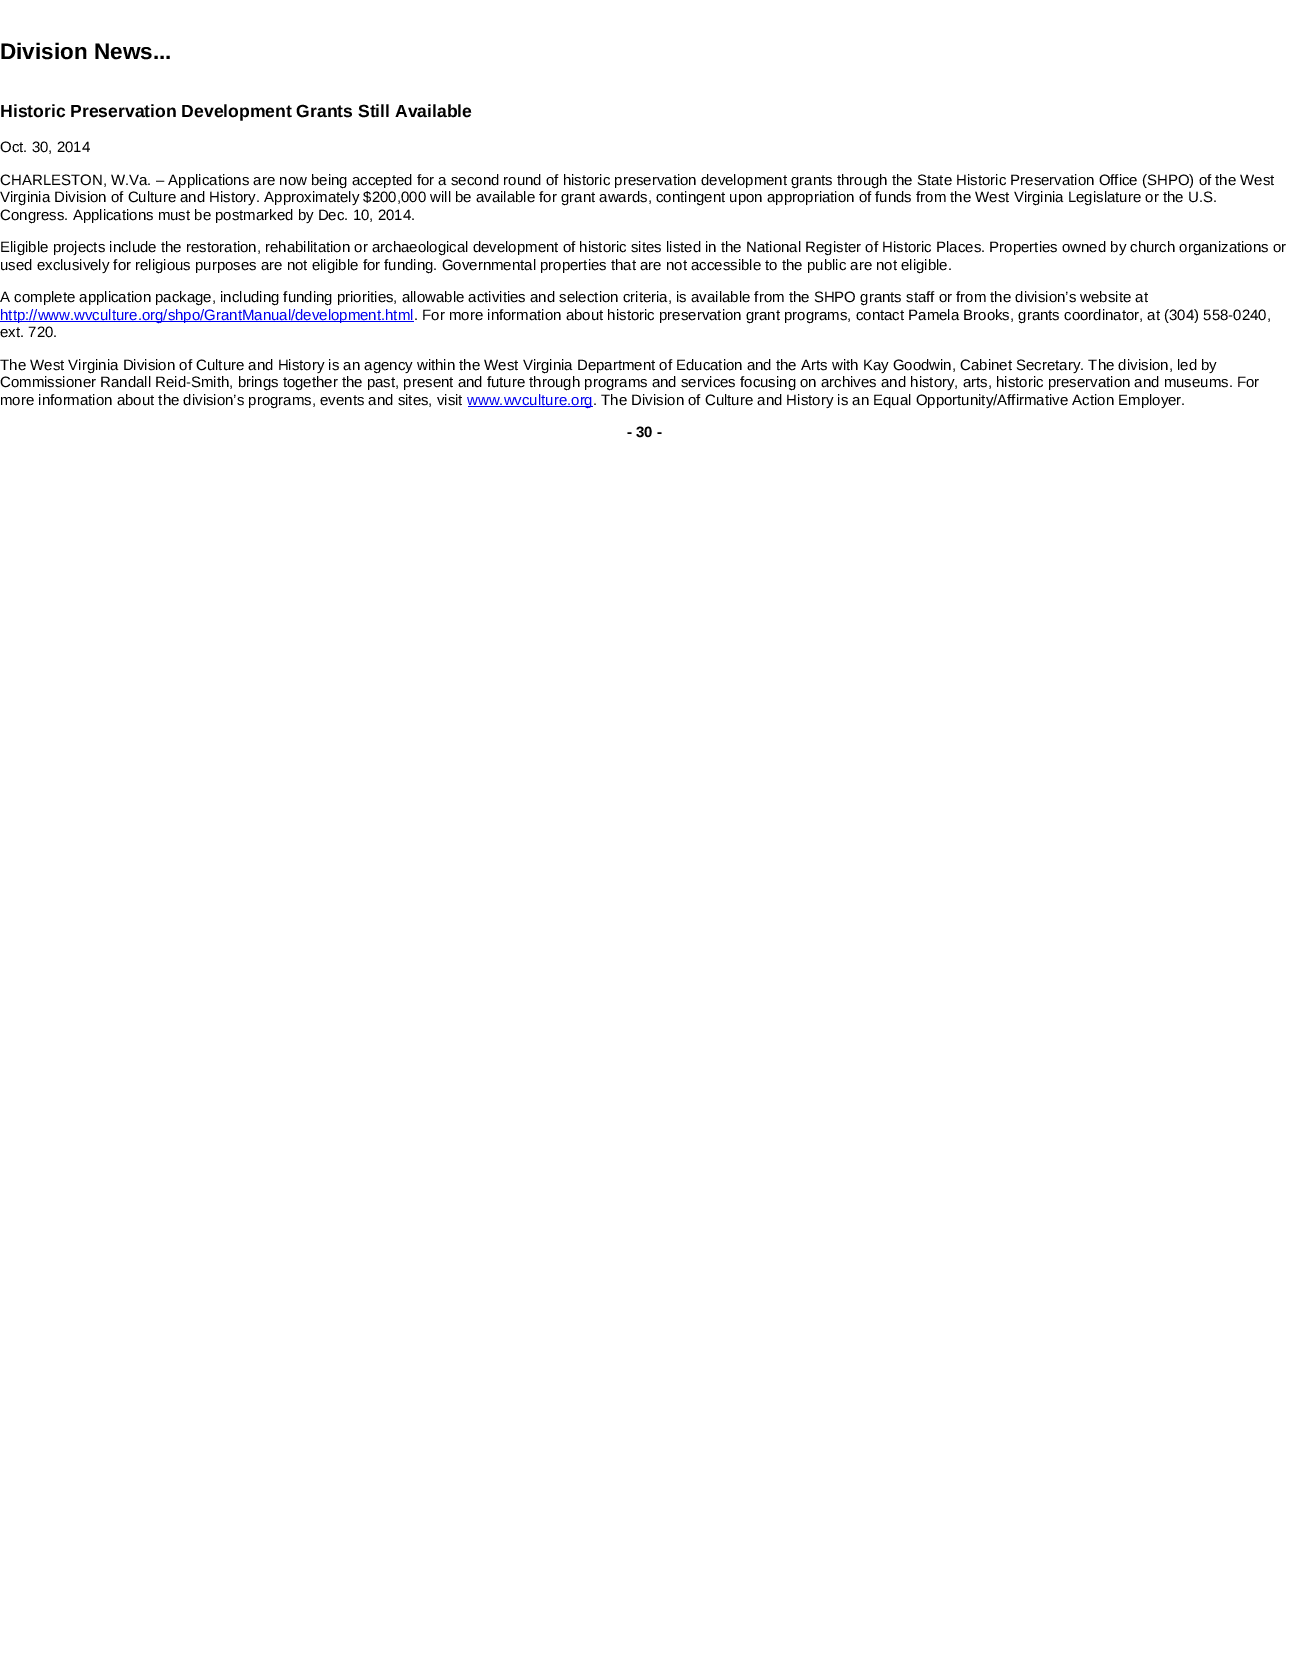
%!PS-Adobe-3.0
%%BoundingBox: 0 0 1297 1663
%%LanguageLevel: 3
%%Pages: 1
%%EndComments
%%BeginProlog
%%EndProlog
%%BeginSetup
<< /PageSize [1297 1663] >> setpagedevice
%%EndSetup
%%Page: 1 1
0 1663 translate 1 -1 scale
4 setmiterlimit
1 setgray
0 0 1297 1663 rectfill
0 0 0.933 setrgbcolor
0 321 414 1 rectfill
468 406 125 1 rectfill
/LiberationSans-Bold [22.5 0 0 -22.5 0 0] selectfont
0 setgray
0 59 moveto (Division News...) show
/LiberationSans-Bold [17.55 0 0 -17.55 0 0] selectfont
0 117 moveto (Historic Preservation Development Grants Still Available) show
/LiberationSans-Regular [15 0 0 -15 0 0] selectfont
0 152 moveto (Oct. 30, 2014) show
0 185 moveto (CHARLESTON, W.Va. – Applications are now being accepted for a second round of historic preservation development grants through the State Historic Preservation Office \(SHPO\) of the West) show
0 202 moveto (Virginia Division of Culture and History. Approximately $200,000 will be available for grant awards, contingent upon appropriation of funds from the West Virginia Legislature or the U.S.) show
0 220 moveto (Congress. Applications must be postmarked by Dec. 10, 2014.) show
0 252 moveto (Eligible projects include the restoration, rehabilitation or archaeological development of historic sites listed in the National Register of Historic Places. Properties owned by church organizations or) show
0 270 moveto (used exclusively for religious purposes are not eligible for funding. Governmental properties that are not accessible to the public are not eligible.) show
0 302 moveto (A complete application package, including funding priorities, allowable activities and selection criteria, is available from the SHPO grants staff or from the division’s website at) show
0 0 0.933 setrgbcolor
0 320 moveto (http://www.wvculture.org/shpo/GrantManual/development.html) show
0 setgray
414 320 moveto (. For more information about historic preservation grant programs, contact Pamela Brooks, grants coordinator, at \(304\) 558-0240,) show
0 337 moveto (ext. 720.) show
0 370 moveto (The West Virginia Division of Culture and History is an agency within the West Virginia Department of Education and the Arts with Kay Goodwin, Cabinet Secretary. The division, led by) show
0 387 moveto (Commissioner Randall Reid-Smith, brings together the past, present and future through programs and services focusing on archives and history, arts, historic preservation and museums. For) show
0 405 moveto (more information about the division’s programs, events and sites, visit) show
0 0 0.933 setrgbcolor
467 405 moveto (www.wvculture.org) show
0 setgray
593 405 moveto (. The Division of Culture and History is an Equal Opportunity/Affirmative Action Employer.) show
/LiberationSans-Bold [15 0 0 -15 0 0] selectfont
627 437 moveto (- 30 -) show
showpage
%%EOF
